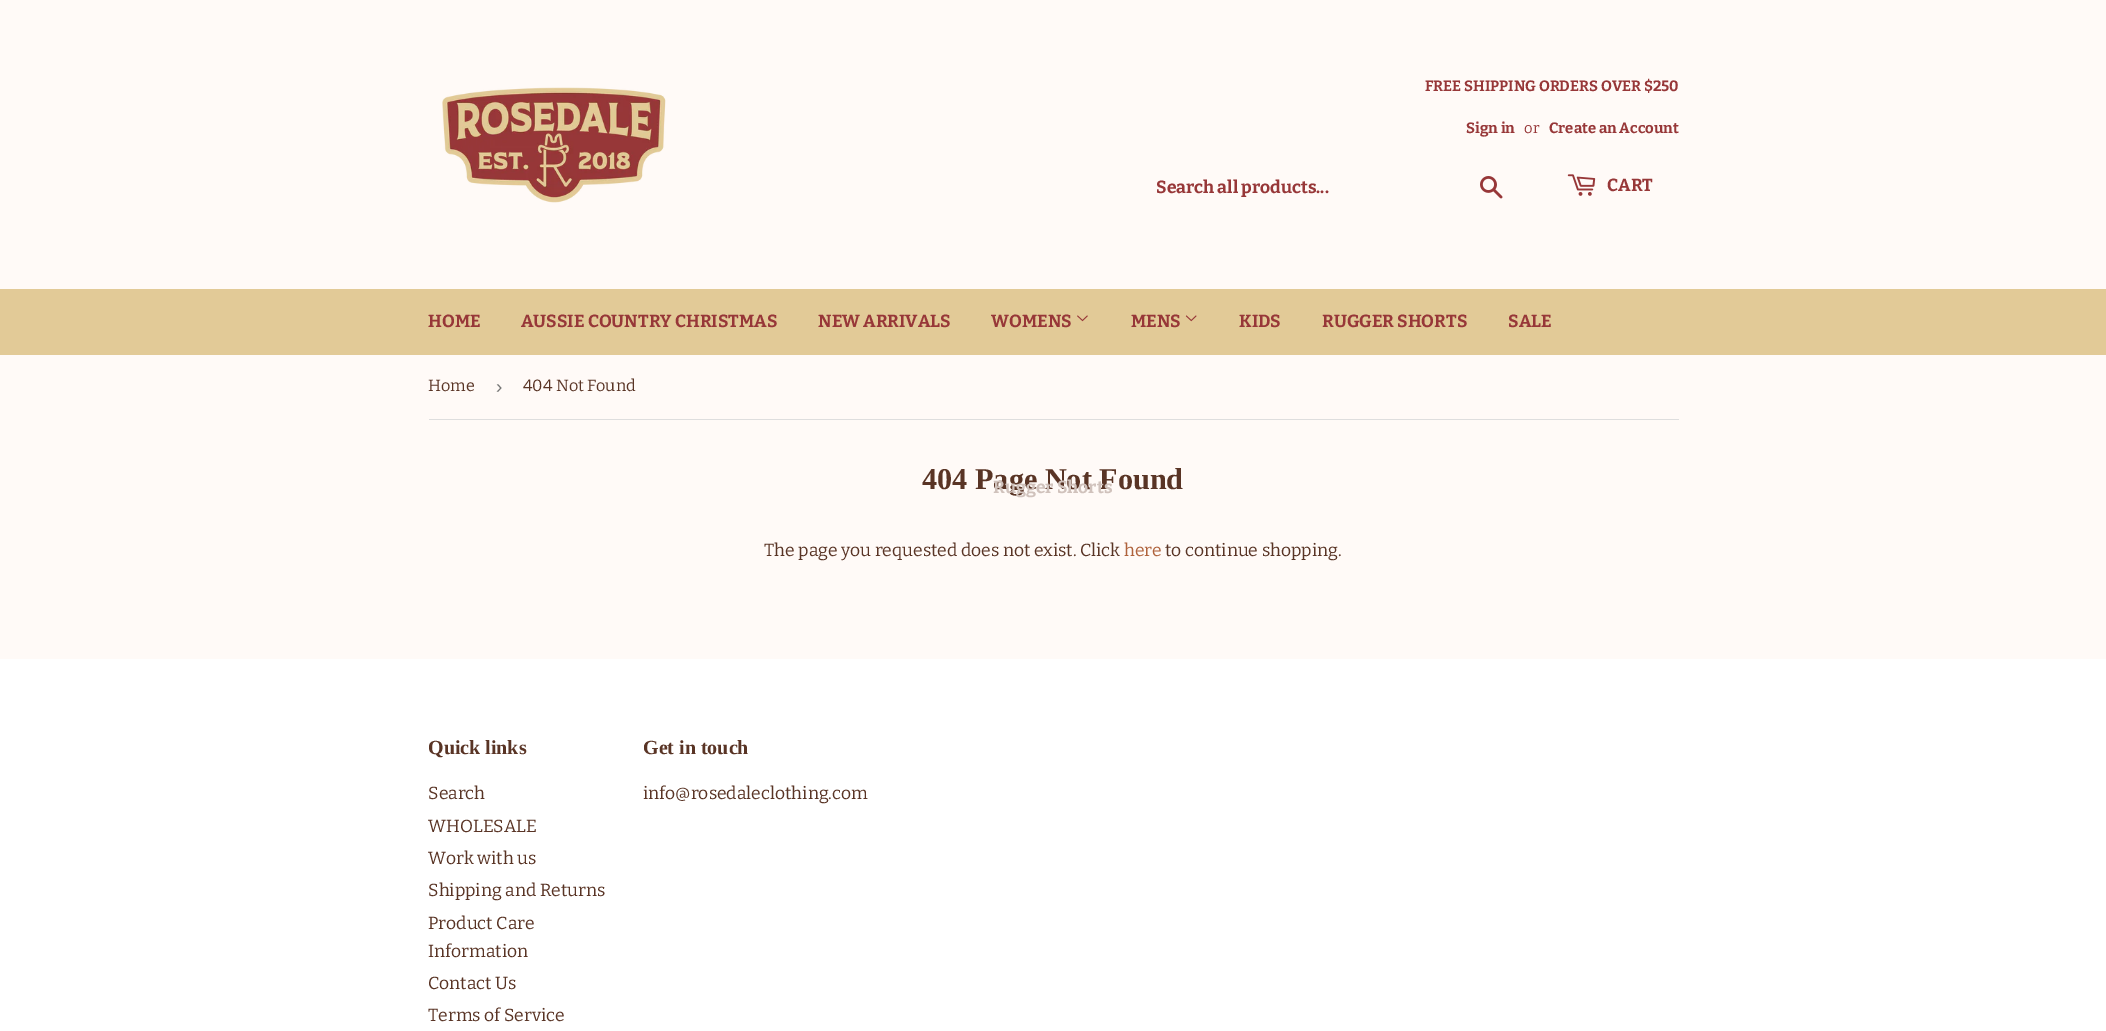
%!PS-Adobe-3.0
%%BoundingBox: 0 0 2106 1031
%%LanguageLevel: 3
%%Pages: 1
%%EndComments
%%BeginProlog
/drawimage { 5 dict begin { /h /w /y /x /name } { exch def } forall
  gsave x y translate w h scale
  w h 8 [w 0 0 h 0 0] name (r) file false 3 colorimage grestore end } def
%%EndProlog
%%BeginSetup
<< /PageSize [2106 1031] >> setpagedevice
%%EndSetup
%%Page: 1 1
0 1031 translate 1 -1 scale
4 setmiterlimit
1 0.98 0.969 setrgbcolor
0 0 2106 1031 rectfill
(images/1.raw) 442 87 224 116 drawimage
(images/2.raw) 1480 176 23 23 drawimage
(images/3.raw) 1567 174 29 22 drawimage
0.886 0.792 0.592 setrgbcolor
0 289 2106 66 rectfill
(images/4.raw) 1077 315 11 7 drawimage
(images/5.raw) 1185 315 12 7 drawimage
0.871 setgray
429 419 1250 1 rectfill
1 setgray
0 659 2106 372 rectfill
/Bitter-Bold [14.9 0 0 -14.9 0 0] selectfont
0.592 0.216 0.22 setrgbcolor
1425 91 moveto (FREE SHIPPING ORDERS OVER $250) show
1466 133 moveto (Sign in) show
/Bitter-Regular [14.9 0 0 -14.9 0 0] selectfont
1524 133 moveto (or) show
/Bitter-Bold [14.9 0 0 -14.9 0 0] selectfont
1549 133 moveto (Create an Account) show
/Bitter-Bold [17.5 0 0 -17.5 0 0] selectfont
1156 193 moveto (Search all products...) show
1607 191 moveto (CART) show
428 327 moveto (HOME) show
521 327 moveto (AUSSIE COUNTRY CHRISTMAS) show
818 327 moveto (NEW ARRIVALS) show
991 327 moveto (WOMENS) show
1131 327 moveto (MENS) show
1239 327 moveto (KIDS) show
1322 327 moveto (RUGGER SHORTS) show
1508 327 moveto (SALE) show
/Bitter-Regular [16.25 0 0 -16.25 0 0] selectfont
0.349 0.204 0.145 setrgbcolor
428 391 moveto (Home) show
/LiberationSans-Regular [19 0 0 -19 0 0] selectfont
0.463 setgray
496 393 moveto (›) show
/Bitter-Regular [16.25 0 0 -16.25 0 0] selectfont
0.349 0.204 0.145 setrgbcolor
523 391 moveto (404 Not Found) show
/LiberationSerif-Bold [30.25 0 0 -30.25 0 0] selectfont
922 489 moveto (404 Page Not Found) show
/Bitter-Bold [17.5 0 0 -17.5 0 0] selectfont
0.816 0.761 0.737 setrgbcolor
993 493 moveto (Rugger Shorts) show
/Bitter-Regular [17.5 0 0 -17.5 0 0] selectfont
0.349 0.204 0.145 setrgbcolor
764 556 moveto (The page you requested does not exist. Click) show
0.686 0.384 0.235 setrgbcolor
1124 556 moveto (here) show
0.349 0.204 0.145 setrgbcolor
1165 556 moveto (to continue shopping.) show
/LiberationSerif-Bold [20 0 0 -20 0 0] selectfont
428 754 moveto (Quick links) show
/Bitter-Regular [17.5 0 0 -17.5 0 0] selectfont
428 799 moveto (Search) show
428 832 moveto (WHOLESALE) show
428 864 moveto (Work with us) show
428 896 moveto (Shipping and Returns) show
428 929 moveto (Product Care) show
428 957 moveto (Information) show
428 989 moveto (Contact Us) show
428 1021 moveto (Terms of Service) show
/LiberationSerif-Bold [20 0 0 -20 0 0] selectfont
643 754 moveto (Get in touch) show
/Bitter-Regular [17.5 0 0 -17.5 0 0] selectfont
643 799 moveto (info@rosedaleclothing.com) show
showpage
%%EOF
